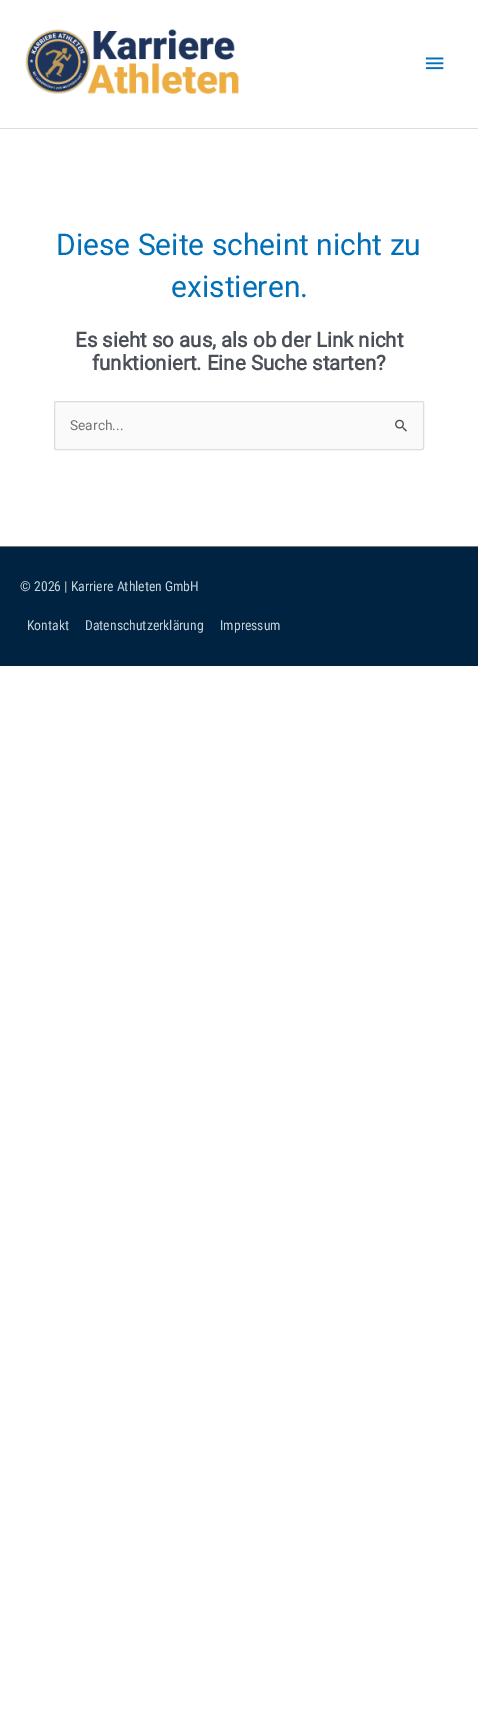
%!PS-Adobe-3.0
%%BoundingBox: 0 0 478 1726
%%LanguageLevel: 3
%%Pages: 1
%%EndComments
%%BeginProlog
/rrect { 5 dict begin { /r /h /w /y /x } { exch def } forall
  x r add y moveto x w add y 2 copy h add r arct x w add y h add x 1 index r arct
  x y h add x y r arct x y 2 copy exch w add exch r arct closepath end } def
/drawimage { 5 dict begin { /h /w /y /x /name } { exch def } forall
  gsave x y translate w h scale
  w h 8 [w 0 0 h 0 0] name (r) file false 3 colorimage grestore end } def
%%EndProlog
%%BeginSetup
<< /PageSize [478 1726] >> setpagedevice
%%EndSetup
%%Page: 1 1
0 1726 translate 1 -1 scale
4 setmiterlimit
1 setgray
0 0 478 1726 rectfill
0.867 setgray
0 128 478 1 rectfill
(images/1.raw) 25 29 214 65 drawimage
(images/2.raw) 425 57 19 13 drawimage
0.98 setgray
54.5 401.5 369 48 1.5 rrect gsave fill grestore
0.867 setgray
stroke
(images/3.raw) 395 419 12 13 drawimage
0.478 setgray
0 546 478 1 rectfill
0 0.137 0.255 setrgbcolor
0 547 478 119 rectfill
/Roboto-Regular [30 0 0 -30 0 0] selectfont
0.004 0.439 0.725 setrgbcolor
56 255 moveto (Diese Seite scheint nicht zu) show
171 297 moveto (existieren.) show
/Roboto-Bold [20.5 0 0 -20.5 0 0] selectfont
0.294 0.31 0.345 setrgbcolor
75 347 moveto (Es sieht so aus, als ob der Link nicht) show
92 370 moveto (funktioniert. Eine Suche starten?) show
/Roboto-Regular [13.75 0 0 -13.75 0 0] selectfont
0.459 setgray
70 430 moveto (Search...) show
/RobotoCondensed-Regular [13.75 0 0 -13.75 0 0] selectfont
0.769 0.824 0.855 setrgbcolor
20 591 moveto (© 2026 | Karriere Athleten GmbH) show
27 630 moveto (Kontakt) show
85 630 moveto (Datenschutzerklärung) show
220 630 moveto (Impressum) show
showpage
%%EOF
